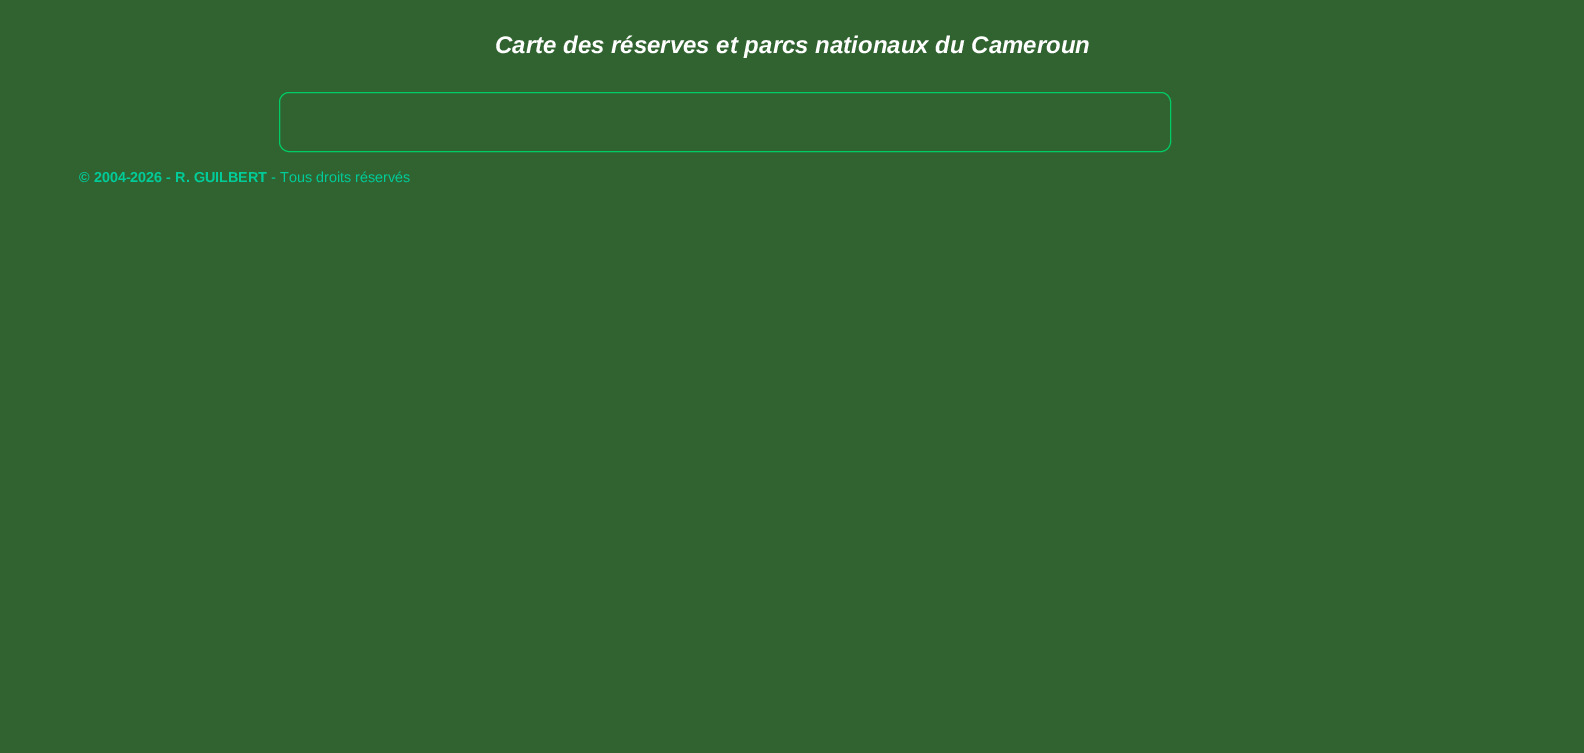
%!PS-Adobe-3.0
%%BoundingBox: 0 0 1584 753
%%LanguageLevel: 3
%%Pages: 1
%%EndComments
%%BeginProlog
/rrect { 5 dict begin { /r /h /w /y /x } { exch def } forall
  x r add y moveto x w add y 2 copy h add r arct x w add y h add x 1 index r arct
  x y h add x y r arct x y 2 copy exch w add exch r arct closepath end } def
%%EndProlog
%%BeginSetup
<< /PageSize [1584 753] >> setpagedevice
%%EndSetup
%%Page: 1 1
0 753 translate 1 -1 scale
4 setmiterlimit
0.192 0.388 0.192 setrgbcolor
0 0 1584 753 rectfill
0 0.8 0.4 setrgbcolor
279.5 92.5 891 59 9.5 rrect stroke
/LiberationSans-BoldItalic [24 0 0 -24 0 0] selectfont
1 setgray
495 53 moveto (Carte des réserves et parcs nationaux du Cameroun) show
/LiberationSans-Bold [14.4 0 0 -14.4 0 0] selectfont
0 0.8 0.6 setrgbcolor
79 182 moveto (© 2004-2026 - R. GUILBERT) show
/LiberationSans-Regular [14.4 0 0 -14.4 0 0] selectfont
271 182 moveto (- Tous droits réservés) show
showpage
%%EOF
